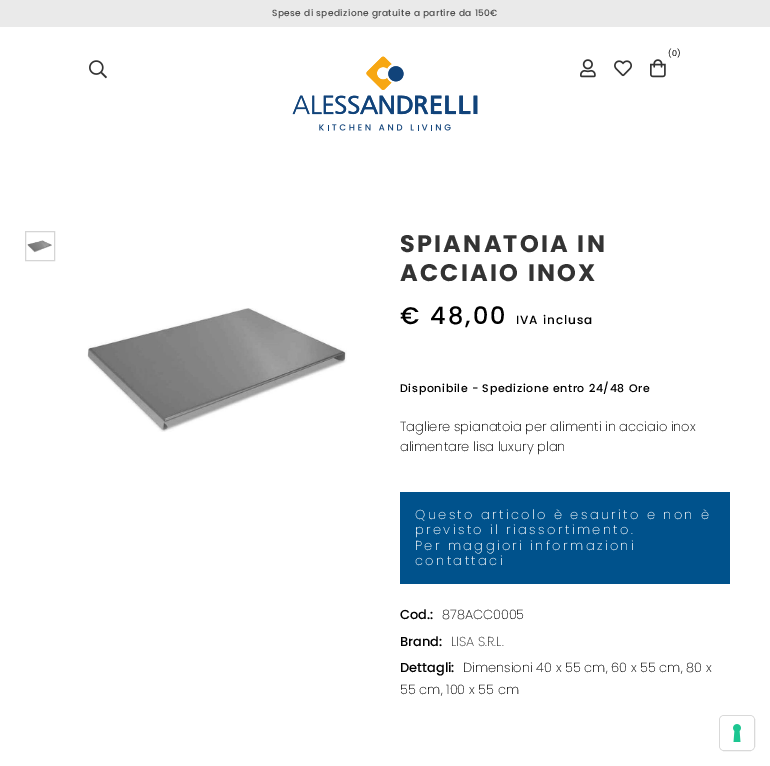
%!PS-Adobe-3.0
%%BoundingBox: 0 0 770 766
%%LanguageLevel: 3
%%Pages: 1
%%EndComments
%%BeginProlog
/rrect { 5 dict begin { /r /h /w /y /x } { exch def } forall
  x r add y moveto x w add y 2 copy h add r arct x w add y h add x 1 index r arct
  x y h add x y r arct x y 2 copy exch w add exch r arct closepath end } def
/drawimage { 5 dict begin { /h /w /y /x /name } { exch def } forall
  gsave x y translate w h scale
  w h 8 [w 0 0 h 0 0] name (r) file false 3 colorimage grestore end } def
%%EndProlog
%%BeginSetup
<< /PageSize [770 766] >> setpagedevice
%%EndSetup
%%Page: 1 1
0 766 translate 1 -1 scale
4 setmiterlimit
1 setgray
0 0 770 766 rectfill
0.918 setgray
0 0 770 27 rectfill
(images/1.raw) 650 59 16 19 drawimage
(images/2.raw) 580 59 16 19 drawimage
(images/3.raw) 614 60 18 17 drawimage
(images/4.raw) 89 60 18 19 drawimage
(images/5.raw) 292 56 186 75 drawimage
0.835 setgray
25.5 231.5 29 29 rectstroke
(images/6.raw) 27 240 25 13 drawimage
(images/7.raw) 87 308 260 124 drawimage
0 0.322 0.549 setrgbcolor
400 492 330 92 rectfill
0.851 setgray
719.5 715.5 35 35 4.5 rrect stroke
1 setgray
720 716 34 34 4 rrect fill
(images/8.raw) 733 724 8 18 drawimage
/Poppins-Medium [9 0 0 -9 0 0] selectfont
0.306 setgray
272 16 moveto 0.4 0 (Spese di spedizione gratuite a partire da 150€) ashow
/Poppins-Regular [8 0 0 -8 0 0] selectfont
0 setgray
668 56 moveto (\(0\)) show
/Poppins-Bold [24 0 0 -24 0 0] selectfont
0.2 setgray
400 252 moveto 2.2 0 (SPIANATOIA IN) ashow
400 281 moveto 2.2 0 (ACCIAIO INOX) ashow
/Poppins-Medium [24 0 0 -24 0 0] selectfont
0 setgray
400 324 moveto 2.2 0 (€ 48,00) ashow
/Poppins-Medium [12 0 0 -12 0 0] selectfont
516 324 moveto 1 0 (IVA inclusa) ashow
/Poppins-Medium [11 0 0 -11 0 0] selectfont
400 392 moveto 0.65 0 (Disponibile - Spedizione entro 24/48 Ore) ashow
/Poppins-ExtraLight [13 0 0 -13 0 0] selectfont
400 431 moveto (Tagliere spianatoia per alimenti in acciaio inox) show
400 451 moveto (alimentare lisa luxury plan) show
1 setgray
415 519 moveto 2.35 0 (Questo articolo è esaurito e non è) ashow
415 534 moveto 2.35 0 (previsto il riassortimento.) ashow
415 550 moveto 2.35 0 (Per maggiori informazioni) ashow
415 565 moveto 2.35 0 (contattaci) ashow
/Poppins-Medium [13 0 0 -13 0 0] selectfont
0 setgray
400 619 moveto (Cod.:) show
/Poppins-ExtraLight [13 0 0 -13 0 0] selectfont
442 619 moveto (878ACC0005) show
/Poppins-Medium [13 0 0 -13 0 0] selectfont
400 646 moveto (Brand:) show
/Poppins-ExtraLight [13 0 0 -13 0 0] selectfont
0.2 setgray
451 646 moveto (LISA S.R.L.) show
/Poppins-Medium [13 0 0 -13 0 0] selectfont
0 setgray
400 672 moveto (Dettagli:) show
/Poppins-ExtraLight [13 0 0 -13 0 0] selectfont
463 672 moveto (Dimensioni 40 x 55 cm, 60 x 55 cm, 80 x) show
400 694 moveto (55 cm, 100 x 55 cm) show
showpage
%%EOF
